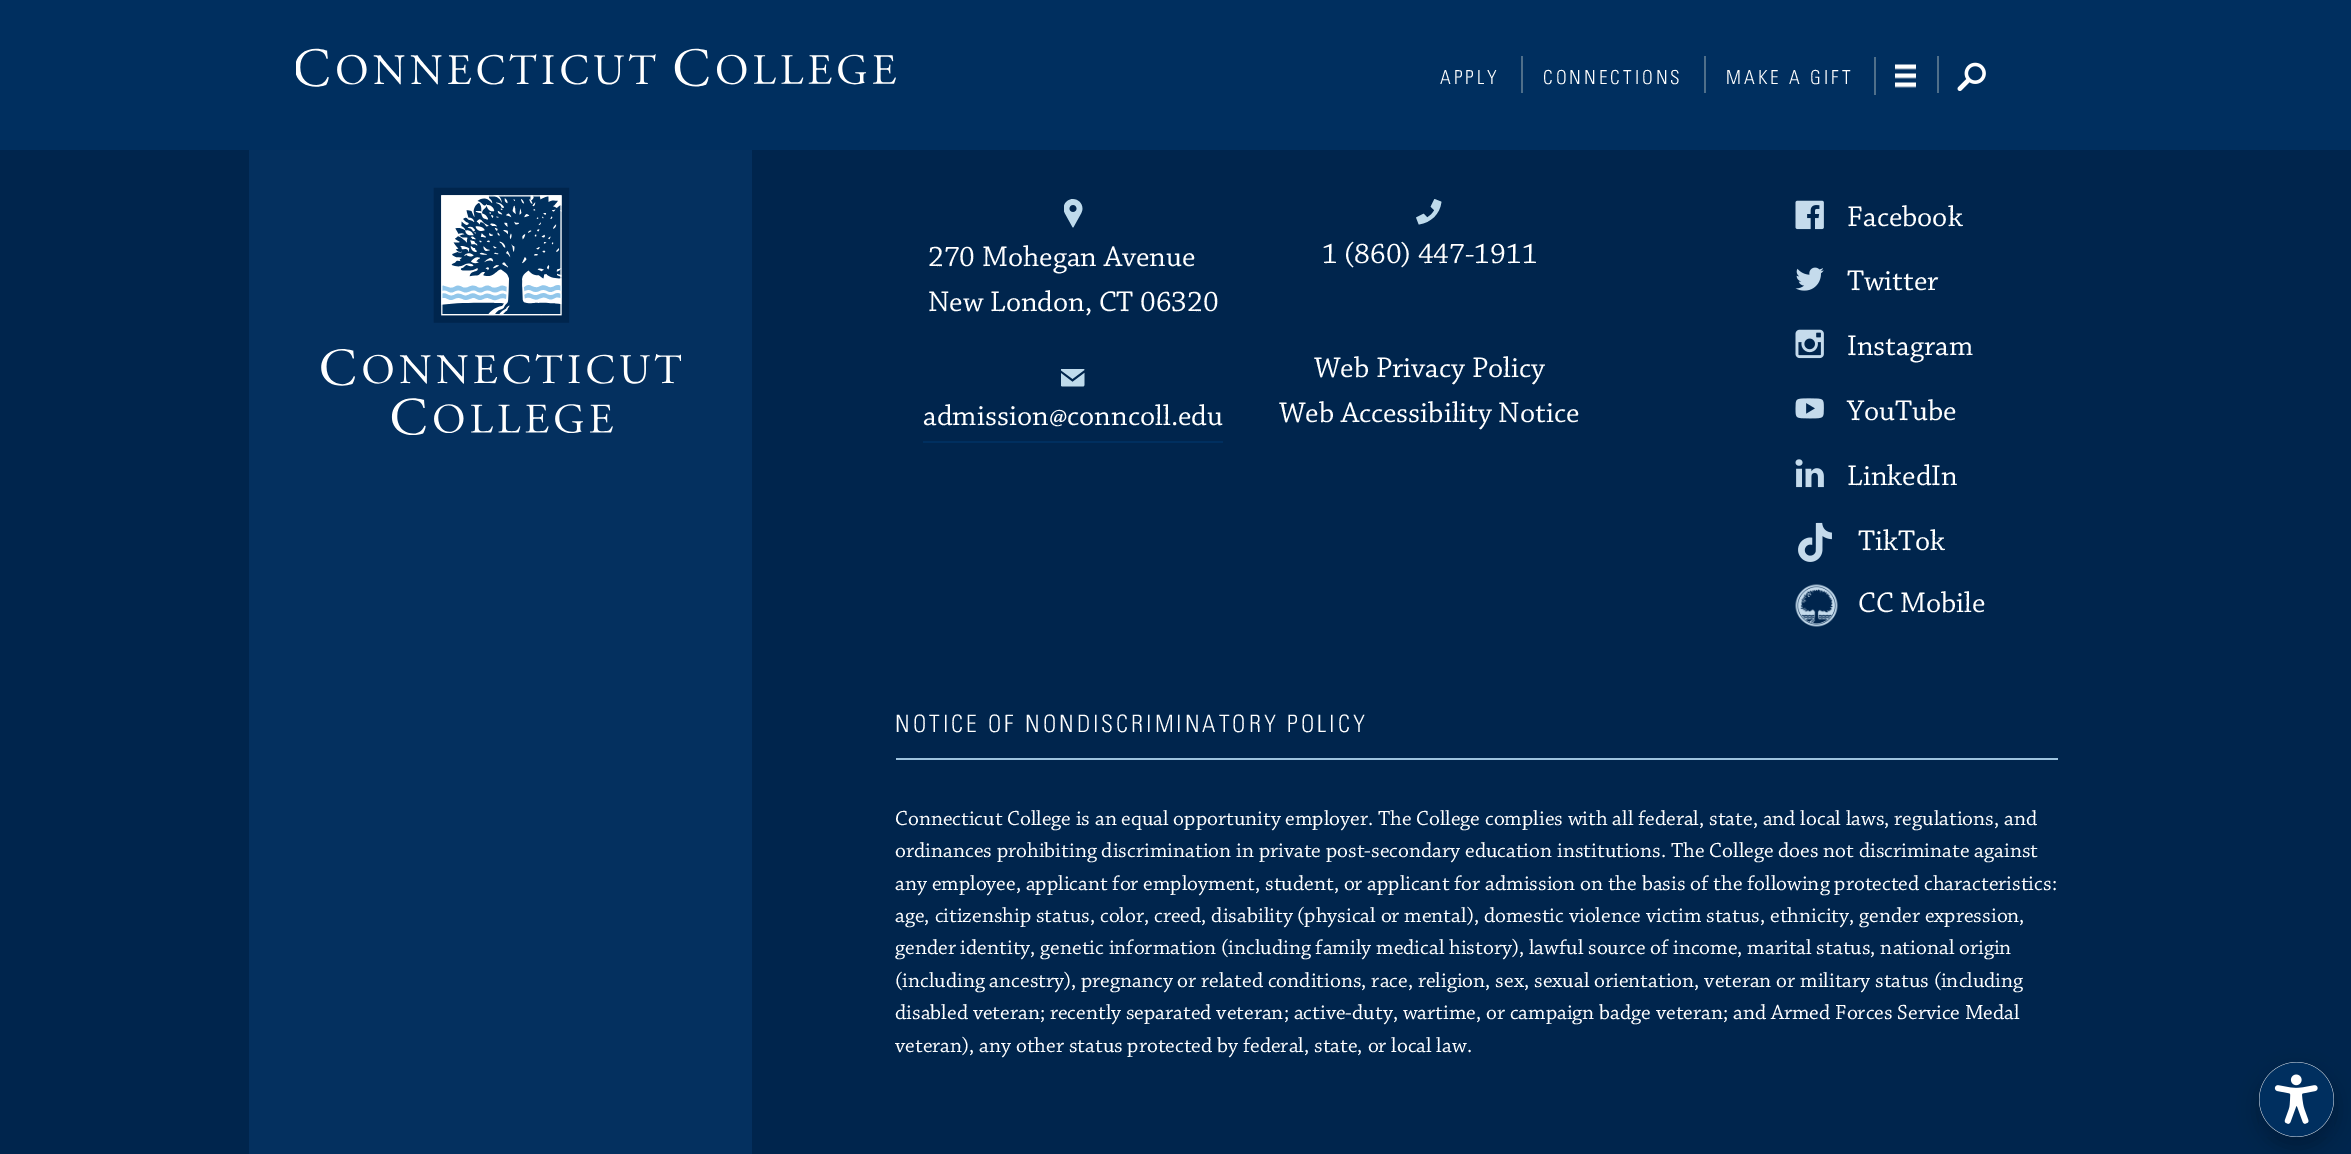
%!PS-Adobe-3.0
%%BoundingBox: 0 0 2351 1154
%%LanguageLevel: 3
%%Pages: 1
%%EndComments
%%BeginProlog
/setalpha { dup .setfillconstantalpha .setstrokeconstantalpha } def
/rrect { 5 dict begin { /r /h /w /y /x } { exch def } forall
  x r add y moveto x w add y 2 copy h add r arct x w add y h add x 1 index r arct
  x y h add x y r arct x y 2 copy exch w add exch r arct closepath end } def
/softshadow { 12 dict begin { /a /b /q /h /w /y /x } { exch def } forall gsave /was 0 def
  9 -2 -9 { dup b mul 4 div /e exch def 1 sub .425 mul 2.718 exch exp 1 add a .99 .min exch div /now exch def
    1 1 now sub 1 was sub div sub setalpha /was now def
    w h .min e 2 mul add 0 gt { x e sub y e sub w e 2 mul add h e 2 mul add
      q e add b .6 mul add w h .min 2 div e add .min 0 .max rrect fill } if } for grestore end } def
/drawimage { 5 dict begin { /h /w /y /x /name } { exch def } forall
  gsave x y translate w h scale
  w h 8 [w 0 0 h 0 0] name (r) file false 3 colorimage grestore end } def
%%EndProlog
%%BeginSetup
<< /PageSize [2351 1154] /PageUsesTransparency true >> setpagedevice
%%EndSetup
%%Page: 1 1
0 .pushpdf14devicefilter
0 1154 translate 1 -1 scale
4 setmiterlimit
0 0.145 0.302 setrgbcolor
0 0 2351 1154 rectfill
0 0.184 0.373 setrgbcolor
0 0 2351 150 rectfill
(images/1.raw) 296 48 600 39 drawimage
0.31 0.435 0.541 setrgbcolor
1521 56 2 37 rectfill
1704 56 2 37 rectfill
1874 57 2 38 rectfill
(images/2.raw) 1895 64 21 24 drawimage
1937 56 2 37 rectfill
(images/3.raw) 1957 62 29 29 drawimage
0.016 0.188 0.373 setrgbcolor
249 150 503 1004 rectfill
(images/4.raw) 321 187 360 248 drawimage
(images/5.raw) 1064 199 19 29 drawimage
(images/6.raw) 1061 369 24 18 drawimage
0 0.184 0.373 setrgbcolor
923 441 300 2 rectfill
(images/7.raw) 1416 199 26 26 drawimage
(images/8.raw) 1795 200 29 30 drawimage
(images/9.raw) 1795 267 29 24 drawimage
(images/10.raw) 1795 329 29 30 drawimage
(images/11.raw) 1795 398 29 21 drawimage
(images/12.raw) 1795 459 29 29 drawimage
(images/13.raw) 1798 522 34 40 drawimage
(images/14.raw) 1795 584 43 43 drawimage
0.62 0.765 0.871 setrgbcolor
896 758 1162 2 rectfill
0 setgray
2258 1070 78 78 39 10 0.23 softshadow
(images/15.raw) 2259 1062 75 75 drawimage
/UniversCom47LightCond-Light [19.25 0 0 -19.25 0 0] selectfont
1 setgray
1440 84 moveto 3 0 (APPLY) ashow
1543 84 moveto 3 0 (CONNECTIONS) ashow
1726 84 moveto 3 0 (MAKE A GIFT) ashow
/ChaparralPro-Regular [30 0 0 -30 0 0] selectfont
928 266 moveto (270 Mohegan Avenue) show
928 311 moveto (New London, CT 06320) show
923 425 moveto (admission@conncoll.edu) show
1322 263 moveto (1 \(860\) 447-1911) show
1314 377 moveto (Web Privacy Policy) show
1279 422 moveto (Web Accessibility Notice) show
1847 226 moveto (Facebook) show
1847 290 moveto (Twitter) show
1847 355 moveto (Instagram) show
1847 420 moveto (YouTube) show
1847 485 moveto (LinkedIn) show
1858 550 moveto (TikTok) show
1858 612 moveto (CC Mobile) show
/UniversCom47LightCond-Light [24 0 0 -24 0 0] selectfont
895 732 moveto 3 0 (NOTICE OF NONDISCRIMINATORY POLICY) ashow
/ChaparralPro-Regular [21.6 0 0 -21.6 0 0] selectfont
895 825 moveto (Connecticut College is an equal opportunity employer. The College complies with all federal, state, and local laws, regulations, and) show
895 857 moveto (ordinances prohibiting discrimination in private post-secondary education institutions. The College does not discriminate against) show
895 890 moveto (any employee, applicant for employment, student, or applicant for admission on the basis of the following protected characteristics:) show
895 922 moveto (age, citizenship status, color, creed, disability \(physical or mental\), domestic violence victim status, ethnicity, gender expression,) show
895 954 moveto (gender identity, genetic information \(including family medical history\), lawful source of income, marital status, national origin) show
895 987 moveto (\(including ancestry\), pregnancy or related conditions, race, religion, sex, sexual orientation, veteran or military status \(including) show
895 1019 moveto (disabled veteran; recently separated veteran; active-duty, wartime, or campaign badge veteran; and Armed Forces Service Medal) show
895 1052 moveto (veteran\), any other status protected by federal, state, or local law.) show
.poppdf14devicefilter showpage
%%EOF
